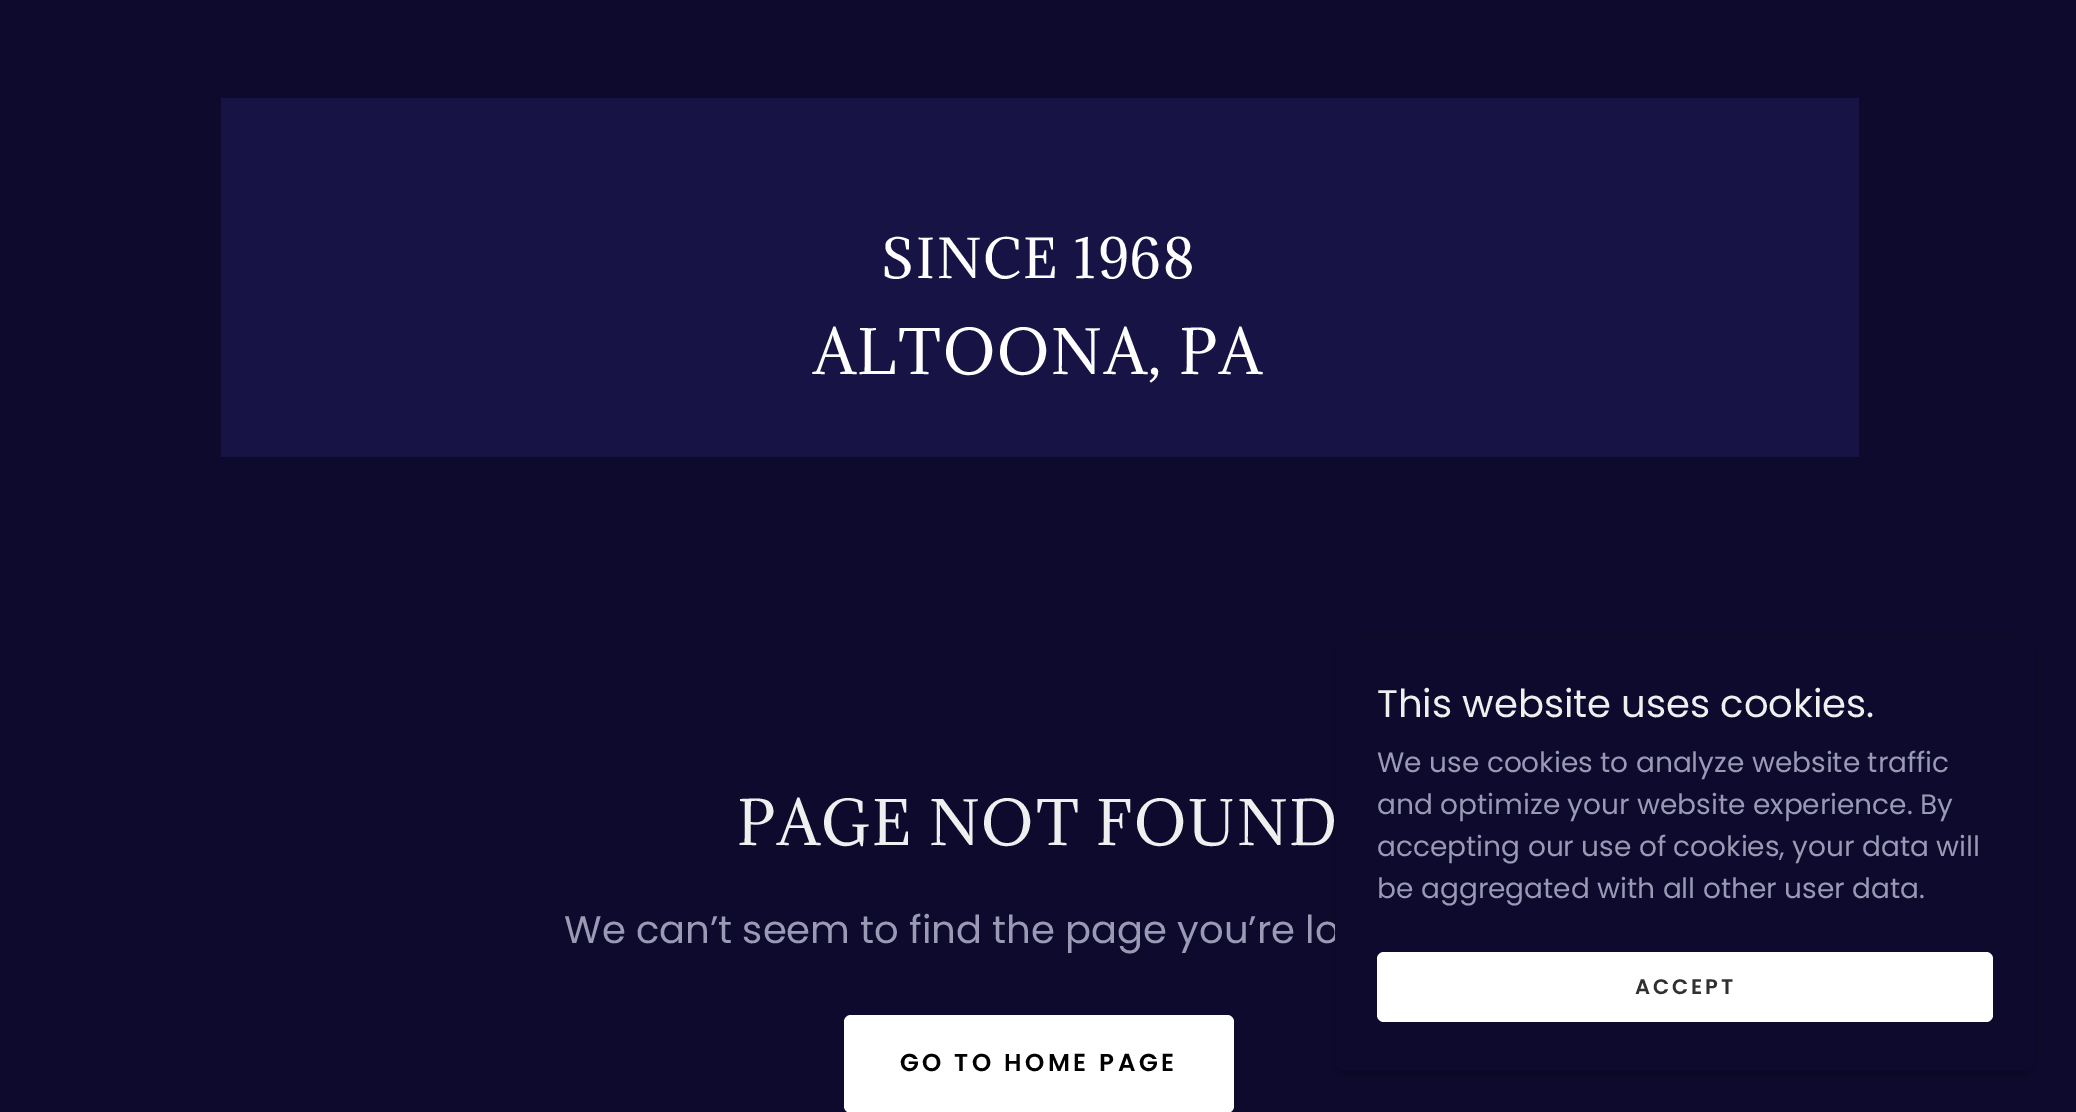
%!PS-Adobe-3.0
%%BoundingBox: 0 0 2076 1112
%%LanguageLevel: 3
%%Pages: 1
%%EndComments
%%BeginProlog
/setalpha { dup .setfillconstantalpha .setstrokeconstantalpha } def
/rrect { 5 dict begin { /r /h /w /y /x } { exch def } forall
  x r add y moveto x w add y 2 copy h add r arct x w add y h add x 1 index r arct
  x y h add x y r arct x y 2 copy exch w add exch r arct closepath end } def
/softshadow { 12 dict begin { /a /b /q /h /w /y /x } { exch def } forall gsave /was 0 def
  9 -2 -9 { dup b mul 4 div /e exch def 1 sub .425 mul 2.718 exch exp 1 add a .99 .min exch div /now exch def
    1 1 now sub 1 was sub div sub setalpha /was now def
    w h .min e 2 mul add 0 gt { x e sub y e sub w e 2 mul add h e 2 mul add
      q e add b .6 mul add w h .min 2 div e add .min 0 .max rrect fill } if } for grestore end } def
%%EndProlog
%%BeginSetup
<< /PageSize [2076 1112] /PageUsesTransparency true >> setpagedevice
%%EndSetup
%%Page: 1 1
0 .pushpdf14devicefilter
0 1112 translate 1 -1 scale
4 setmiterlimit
0.051 0.039 0.18 setrgbcolor
0 0 2076 1112 rectfill
0.09 0.075 0.267 setrgbcolor
221 98 1638 359 rectfill
1 setgray
844 1015 390 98 7 rrect fill
0 setgray
1335 642 700 433 12 5 0.3 softshadow
/Adamina-Regular [50.75 0 0 -50.75 0 0] selectfont
0.996 setgray
881 278 moveto 1.75 0 (SINCE 1968) ashow
/Adamina-Regular [57.75 0 0 -57.75 0 0] selectfont
813 374 moveto 1.75 0 (ALTOONA, PA) ashow
0.937 0.937 0.941 setrgbcolor
737 845 moveto 1.75 0 (PAGE NOT FOUND) ashow
/Poppins-Regular [38.5 0 0 -38.5 0 0] selectfont
0.608 0.604 0.71 setrgbcolor
564 943 moveto (We can’t seem to find the page you’re lo) show
/Poppins-SemiBold [24.5 0 0 -24.5 0 0] selectfont
0 setgray
900 1071 moveto 3.5 0 (GO TO HOME PAGE) ashow
0.051 0.039 0.18 setrgbcolor
1335 639 700 432 12 rrect fill
/Poppins-Regular [38.5 0 0 -38.5 0 0] selectfont
0.937 0.937 0.941 setrgbcolor
1377 717 moveto (This website uses cookies.) show
/Poppins-Regular [28 0 0 -28 0 0] selectfont
0.608 0.604 0.71 setrgbcolor
1377 772 moveto (We use cookies to analyze website traffic) show
1377 814 moveto (and optimize your website experience. By) show
1377 856 moveto (accepting our use of cookies, your data will) show
1377 898 moveto (be aggregated with all other user data.) show
1 setgray
1377 952 616 70 7 rrect fill
/Poppins-SemiBold [21 0 0 -21 0 0] selectfont
0.188 setgray
1635 994 moveto 3 0 (ACCEPT) ashow
.poppdf14devicefilter showpage
%%EOF
